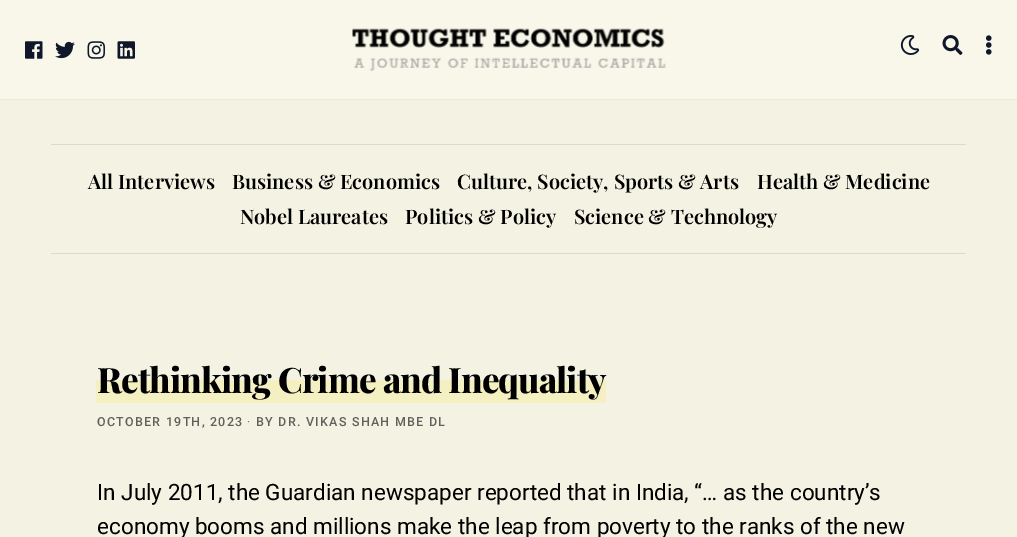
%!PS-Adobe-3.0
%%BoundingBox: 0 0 1017 537
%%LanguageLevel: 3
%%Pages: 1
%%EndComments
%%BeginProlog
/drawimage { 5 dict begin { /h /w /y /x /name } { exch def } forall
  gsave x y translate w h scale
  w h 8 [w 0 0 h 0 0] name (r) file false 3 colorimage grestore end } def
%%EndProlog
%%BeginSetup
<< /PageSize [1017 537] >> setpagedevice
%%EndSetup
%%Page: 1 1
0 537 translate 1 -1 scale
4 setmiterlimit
0.953 0.949 0.89 setrgbcolor
0 0 1017 537 rectfill
0.973 0.969 0.914 setrgbcolor
0 0 1017 99 rectfill
0.925 0.922 0.867 setrgbcolor
0 99 1017 1 rectfill
(images/1.raw) 25 41 18 18 drawimage
(images/2.raw) 55 41 20 18 drawimage
(images/3.raw) 87 41 18 18 drawimage
(images/4.raw) 117 41 18 18 drawimage
(images/5.raw) 352 28 314 43 drawimage
(images/6.raw) 900 35 20 20 drawimage
(images/7.raw) 942 35 21 20 drawimage
(images/8.raw) 986 35 6 20 drawimage
0.859 0.855 0.8 setrgbcolor
51 144 915 1 rectfill
51 253 915 1 rectfill
0.961 0.941 0.757 setrgbcolor
96 380 510 23 rectfill
/PlayfairDisplay-SemiBold [20 0 0 -20 0 0] selectfont
0 setgray
88 189 moveto (All Interviews) show
232 189 moveto (Business & Economics) show
457 189 moveto (Culture, Society, Sports & Arts) show
757 189 moveto (Health & Medicine) show
240 224 moveto (Nobel Laureates) show
405 224 moveto (Politics & Policy) show
574 224 moveto (Science & Technology) show
/PlayfairDisplay-ExtraBold [35 0 0 -35 0 0] selectfont
97 393 moveto -0.9 0 (Rethinking Crime and Inequality) ashow
/Roboto-Medium [12.5 0 0 -12.5 0 0] selectfont
0.38 0.38 0.357 setrgbcolor
97 426 moveto 1.25 0 (OCTOBER 19TH, 2023) ashow
/Roboto-Regular [12.5 0 0 -12.5 0 0] selectfont
0.478 0.475 0.447 setrgbcolor
247 426 moveto 1.25 0 (·) ashow
/Roboto-Medium [12.5 0 0 -12.5 0 0] selectfont
0.38 0.38 0.357 setrgbcolor
256 426 moveto 1.25 0 (BY DR. VIKAS SHAH MBE DL) ashow
/Roboto-Regular [22.5 0 0 -22.5 0 0] selectfont
0 setgray
97 500 moveto (In July 2011, the Guardian newspaper reported that in India, “… as the country’s) show
97 534 moveto (economy booms and millions make the leap from poverty to the ranks of the new) show
showpage
%%EOF
